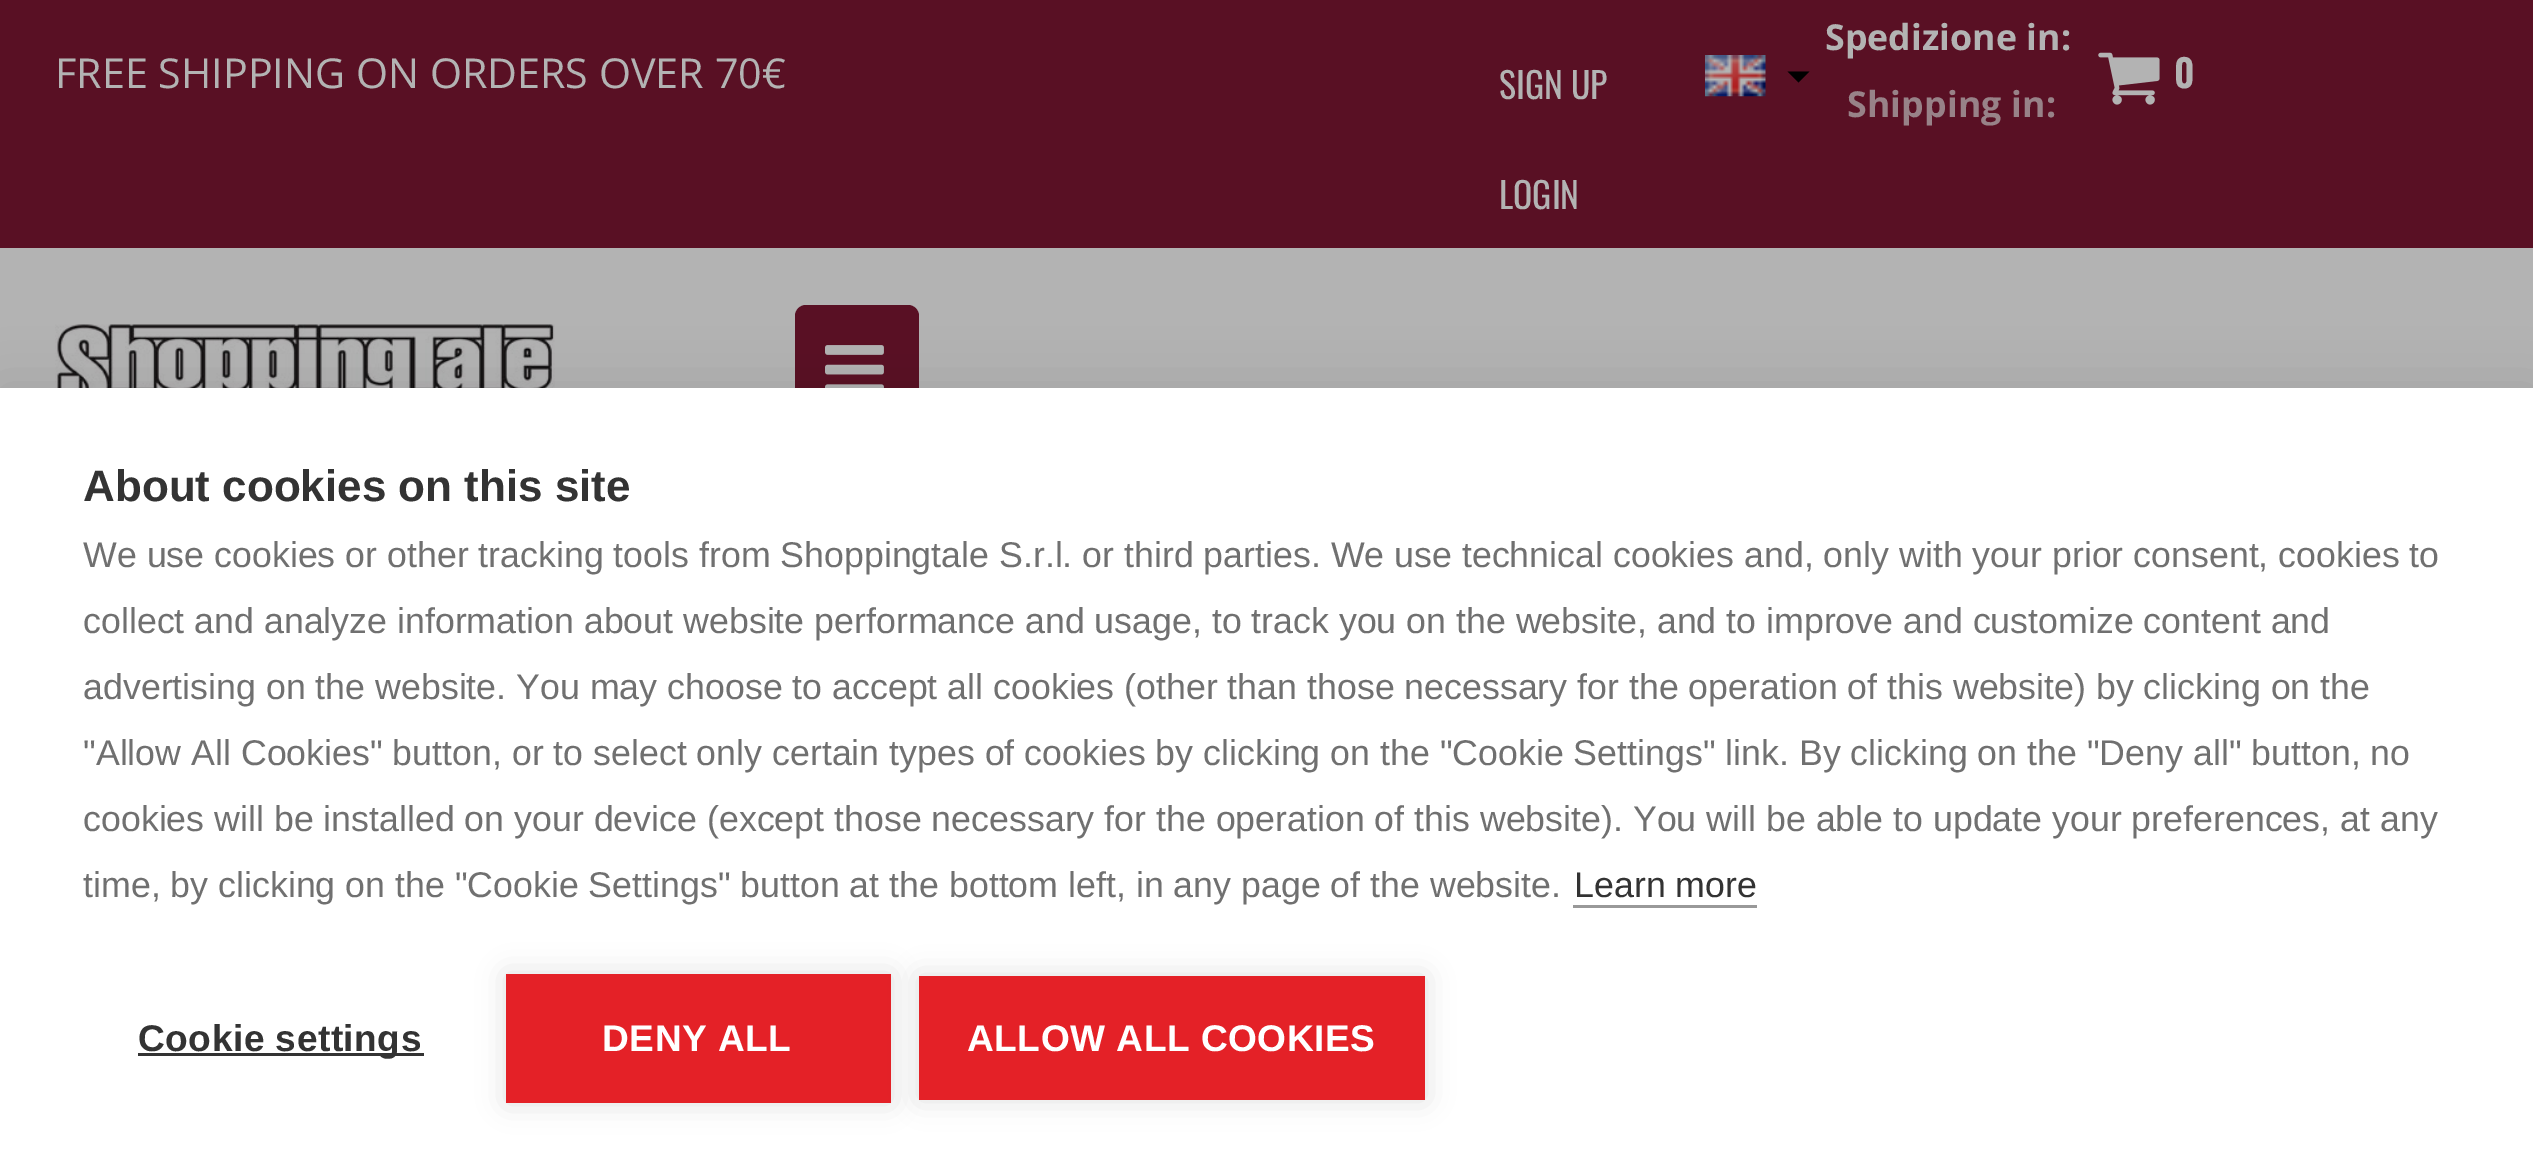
%!PS-Adobe-3.0
%%BoundingBox: 0 0 2533 1170
%%LanguageLevel: 3
%%Pages: 1
%%EndComments
%%BeginProlog
/setalpha { dup .setfillconstantalpha .setstrokeconstantalpha } def
/rrect { 5 dict begin { /r /h /w /y /x } { exch def } forall
  x r add y moveto x w add y 2 copy h add r arct x w add y h add x 1 index r arct
  x y h add x y r arct x y 2 copy exch w add exch r arct closepath end } def
/softshadow { 12 dict begin { /a /b /q /h /w /y /x } { exch def } forall gsave /was 0 def
  9 -2 -9 { dup b mul 4 div /e exch def 1 sub .425 mul 2.718 exch exp 1 add a .99 .min exch div /now exch def
    1 1 now sub 1 was sub div sub setalpha /was now def
    w h .min e 2 mul add 0 gt { x e sub y e sub w e 2 mul add h e 2 mul add
      q e add b .6 mul add w h .min 2 div e add .min 0 .max rrect fill } if } for grestore end } def
/drawimage { 5 dict begin { /h /w /y /x /name } { exch def } forall
  gsave x y translate w h scale
  w h 8 [w 0 0 h 0 0] name (r) file false 3 colorimage grestore end } def
%%EndProlog
%%BeginSetup
<< /PageSize [2533 1170] /PageUsesTransparency true >> setpagedevice
%%EndSetup
%%Page: 1 1
0 .pushpdf14devicefilter
0 1170 translate 1 -1 scale
4 setmiterlimit
0.702 setgray
0 0 2533 1170 rectfill
0.349 0.063 0.141 setrgbcolor
0 0 2533 248 rectfill
(images/1.raw) 1705 55 61 42 drawimage
0 setgray
newpath 1787.5 71.5 moveto 1809.5 71.5 lineto 1798.5 82.5 lineto closepath fill
(images/2.raw) 2098 52 62 53 drawimage
(images/3.raw) 55 324 500 64 drawimage
0.349 0.063 0.141 setrgbcolor
795 305 124 127 11 rrect fill
(images/4.raw) 825 345 59 43 drawimage
0 setgray
0 388 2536 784 0 27.5 0.1 softshadow
1 setgray
0 388 2533 782 rectfill
0.6 setgray
1573 905 184 3 rectfill
0.2 setgray
138 1053 286 3 rectfill
0 setgray
506 974 385 129 0 14 0.12 softshadow
0.894 0.129 0.153 setrgbcolor
506 974 385 129 rectfill
0 setgray
919 976 506 124 0 14 0.12 softshadow
0.894 0.129 0.153 setrgbcolor
919 976 506 124 rectfill
/OpenSans-Regular [41.25 0 0 -41.25 0 0] selectfont
0.702 setgray
55 88 moveto (FREE SHIPPING ON ORDERS OVER 70€) show
/Oswald-Regular [35.75 0 0 -35.75 0 0] selectfont
1499 99 moveto (SIGN UP) show
1499 209 moveto (LOGIN) show
/OpenSans-Bold [35.75 0 0 -35.75 0 0] selectfont
1825 50 moveto (Spedizione in:) show
0.596 0.51 0.533 setrgbcolor
1847 117 moveto 0.1 0 (Shipping in:) ashow
/Oswald-SemiBold [38 0 0 -38 0 0] selectfont
0.702 setgray
2174 88 moveto (0) show
/LiberationSans-Bold [44 0 0 -44 0 0] selectfont
0.2 setgray
83 501 moveto (About cookies on this site) show
/LiberationSans-Regular [35.75 0 0 -35.75 0 0] selectfont
0.439 setgray
83 567 moveto (We use cookies or other tracking tools from Shoppingtale S.r.l. or third parties. We use technical cookies and, only with your prior consent, cookies to) show
83 633 moveto (collect and analyze information about website performance and usage, to track you on the website, and to improve and customize content and) show
83 699 moveto (advertising on the website. You may choose to accept all cookies \(other than those necessary for the operation of this website\) by clicking on the) show
83 765 moveto ("Allow All Cookies" button, or to select only certain types of cookies by clicking on the "Cookie Settings" link. By clicking on the "Deny all" button, no) show
83 831 moveto (cookies will be installed on your device \(except those necessary for the operation of this website\). You will be able to update your preferences, at any) show
83 897 moveto (time, by clicking on the "Cookie Settings" button at the bottom left, in any page of the website.) show
0.2 setgray
1574 897 moveto (Learn more) show
/LiberationSans-Bold [37.1 0 0 -37.1 0 0] selectfont
138 1051 moveto 0.5 0 (Cookie settings) ashow
1 setgray
602 1051 moveto 0.5 0 (DENY ALL) ashow
967 1051 moveto 0.5 0 (ALLOW ALL COOKIES) ashow
.poppdf14devicefilter showpage
%%EOF
